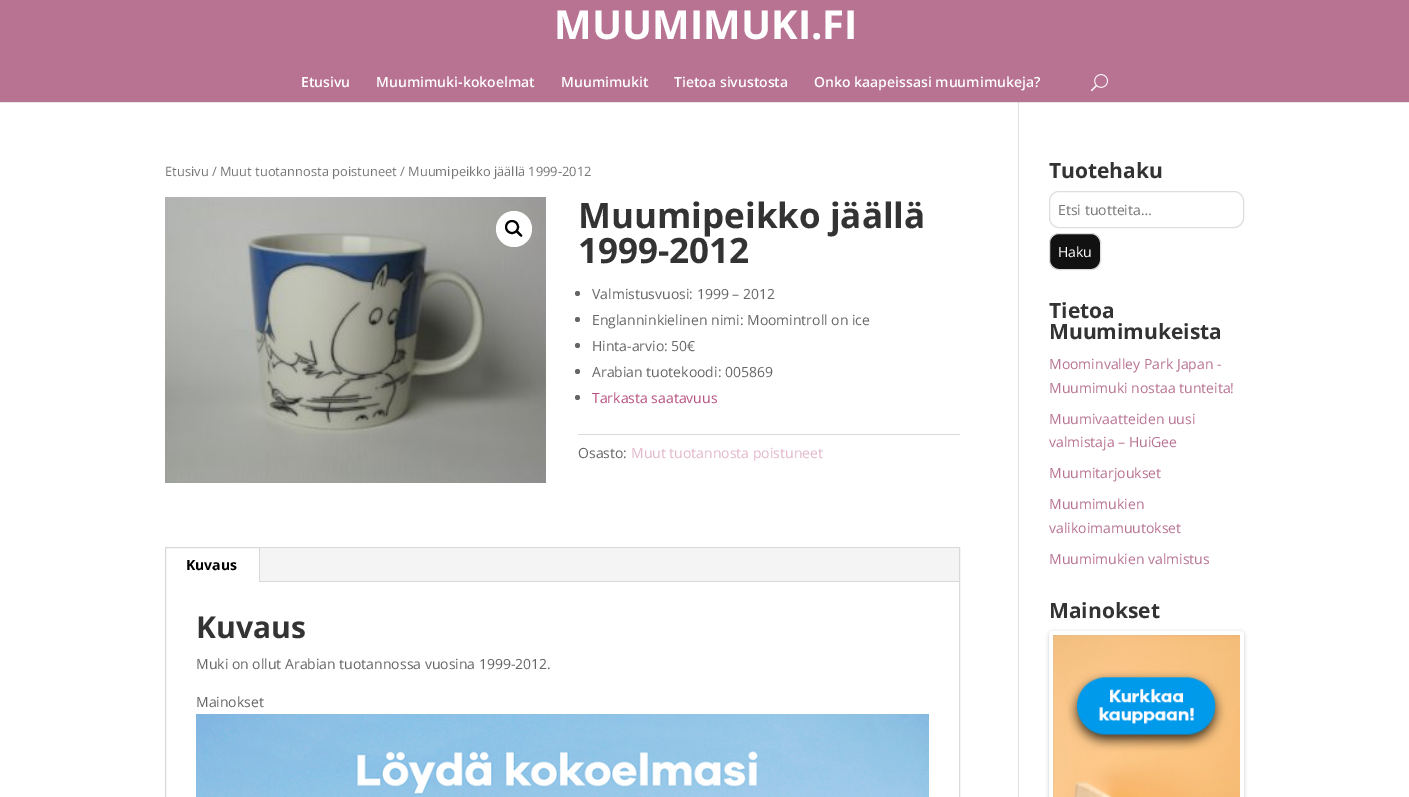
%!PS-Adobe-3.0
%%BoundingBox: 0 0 1409 797
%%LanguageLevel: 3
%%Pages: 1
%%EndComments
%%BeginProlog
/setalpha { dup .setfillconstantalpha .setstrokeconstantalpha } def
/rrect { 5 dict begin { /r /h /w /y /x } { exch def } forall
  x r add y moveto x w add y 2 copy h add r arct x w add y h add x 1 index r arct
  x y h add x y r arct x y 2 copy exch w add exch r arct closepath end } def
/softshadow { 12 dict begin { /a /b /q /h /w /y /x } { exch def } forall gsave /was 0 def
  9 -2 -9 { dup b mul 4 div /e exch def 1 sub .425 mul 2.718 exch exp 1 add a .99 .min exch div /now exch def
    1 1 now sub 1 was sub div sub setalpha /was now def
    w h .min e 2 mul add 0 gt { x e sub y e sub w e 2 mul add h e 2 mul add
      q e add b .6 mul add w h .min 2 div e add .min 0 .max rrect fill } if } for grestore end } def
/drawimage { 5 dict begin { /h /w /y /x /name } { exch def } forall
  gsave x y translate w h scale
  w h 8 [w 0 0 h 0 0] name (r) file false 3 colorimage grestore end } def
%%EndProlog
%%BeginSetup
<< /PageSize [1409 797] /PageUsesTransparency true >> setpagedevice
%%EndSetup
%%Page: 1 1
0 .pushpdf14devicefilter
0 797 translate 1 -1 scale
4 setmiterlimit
1 setgray
0 0 1409 797 rectfill
0.902 setgray
0 102 1409 1 rectfill
0.722 0.451 0.573 setrgbcolor
0 0 1409 102 rectfill
(images/1.raw) 1091 74 17 18 drawimage
0.886 setgray
1018 102 1 695 rectfill
0.796 setgray
1018 102 1 1 rectfill
(images/2.raw) 165 197 381 286 drawimage
1 setgray
newpath 514 229 18 0 360 arc closepath fill
0 setgray
2 setlinewidth
newpath 512 227 6 0 360 arc closepath stroke
newpath 516.5 231 moveto 517.5 229.5 519.5 232.5 520 233 curveto 520.5 233.5 523 235.5 522 236.5 curveto 521 237.5 519 235 518.5 234.5 curveto 518 234 515 232 516.5 231 curveto closepath fill
0.4 setgray
newpath 577.5 293.5 2.5 0 360 arc closepath fill
newpath 577.5 319.5 2.5 0 360 arc closepath fill
newpath 577.5 345.5 2.5 0 360 arc closepath fill
newpath 577.5 371.5 2.5 0 360 arc closepath fill
newpath 577.5 397.5 2.5 0 360 arc closepath fill
0.855 setgray
578 434 382 1 rectfill
0.851 setgray
1 setlinewidth
165.5 547.5 794 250 rectstroke
0.957 setgray
260 548 699 33 rectfill
0.851 setgray
259 548 1 34 rectfill
260 581 699 1 rectfill
(images/3.raw) 196 714 733 83 drawimage
0.867 setgray
1049.5 191.5 194 36 9.5 rrect stroke
0.067 setgray
1049.5 233.5 51 36 9.5 rrect gsave fill grestore
0.867 setgray
stroke
0 setgray
1049 632 195 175 4 2 0.2 softshadow
1 setgray
1049 631 195 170 4 rrect fill
(images/4.raw) 1053 635 187 162 drawimage
/OpenSans-Bold [40 0 0 -40 0 0] selectfont
554 39 moveto (MUUMIMUKI.FI) show
/OpenSans-SemiBold [14 0 0 -14 0 0] selectfont
301 87 moveto (Etusivu) show
376 87 moveto (Muumimuki-kokoelmat) show
561 87 moveto (Muumimukit) show
674 87 moveto (Tietoa sivustosta) show
814 87 moveto (Onko kaapeissasi muumimukeja?) show
/OpenSans-Regular [12.9 0 0 -12.9 0 0] selectfont
0.463 setgray
165 176 moveto (Etusivu / Muut tuotannosta poistuneet / Muumipeikko jäällä 1999-2012) show
/OpenSans-Bold [35 0 0 -35 0 0] selectfont
0.2 setgray
578 228 moveto (Muumipeikko jäällä) show
578 263 moveto (1999-2012) show
/OpenSans-Regular [14 0 0 -14 0 0] selectfont
0.4 setgray
592 299 moveto (Valmistusvuosi: 1999 – 2012) show
592 325 moveto (Englanninkielinen nimi: Moomintroll on ice) show
592 351 moveto (Hinta-arvio: 50€) show
592 377 moveto (Arabian tuotekoodi: 005869) show
0.718 0.322 0.502 setrgbcolor
592 403 moveto (Tarkasta saatavuus) show
0.4 setgray
578 458 moveto (Osasto:) show
0.886 0.718 0.796 setrgbcolor
631 458 moveto (Muut tuotannosta poistuneet) show
/OpenSans-Bold [14 0 0 -14 0 0] selectfont
0 setgray
186 570 moveto (Kuvaus) show
/OpenSans-Bold [30 0 0 -30 0 0] selectfont
0.2 setgray
196 638 moveto (Kuvaus) show
/OpenSans-Regular [14 0 0 -14 0 0] selectfont
0.4 setgray
196 669 moveto (Muki on ollut Arabian tuotannossa vuosina 1999-2012.) show
196 707 moveto (Mainokset) show
/OpenSans-Bold [21 0 0 -21 0 0] selectfont
0.2 setgray
1049 178 moveto (Tuotehaku) show
/OpenSans-Regular [14 0 0 -14 0 0] selectfont
0.463 setgray
1058 215 moveto (Etsi tuotteita…) show
1 setgray
1058 257 moveto (Haku) show
/OpenSans-Bold [21 0 0 -21 0 0] selectfont
0.2 setgray
1049 318 moveto (Tietoa) show
1049 339 moveto (Muumimukeista) show
/OpenSans-Regular [14 0 0 -14 0 0] selectfont
0.722 0.451 0.573 setrgbcolor
1049 369 moveto (Moominvalley Park Japan -) show
1049 393 moveto (Muumimuki nostaa tunteita!) show
1049 424 moveto (Muumivaatteiden uusi) show
1049 447 moveto (valmistaja – HuiGee) show
1049 478 moveto (Muumitarjoukset) show
1049 509 moveto (Muumimukien) show
1049 533 moveto (valikoimamuutokset) show
1049 564 moveto (Muumimukien valmistus) show
/OpenSans-Bold [21 0 0 -21 0 0] selectfont
0.2 setgray
1049 618 moveto (Mainokset) show
.poppdf14devicefilter showpage
%%EOF
